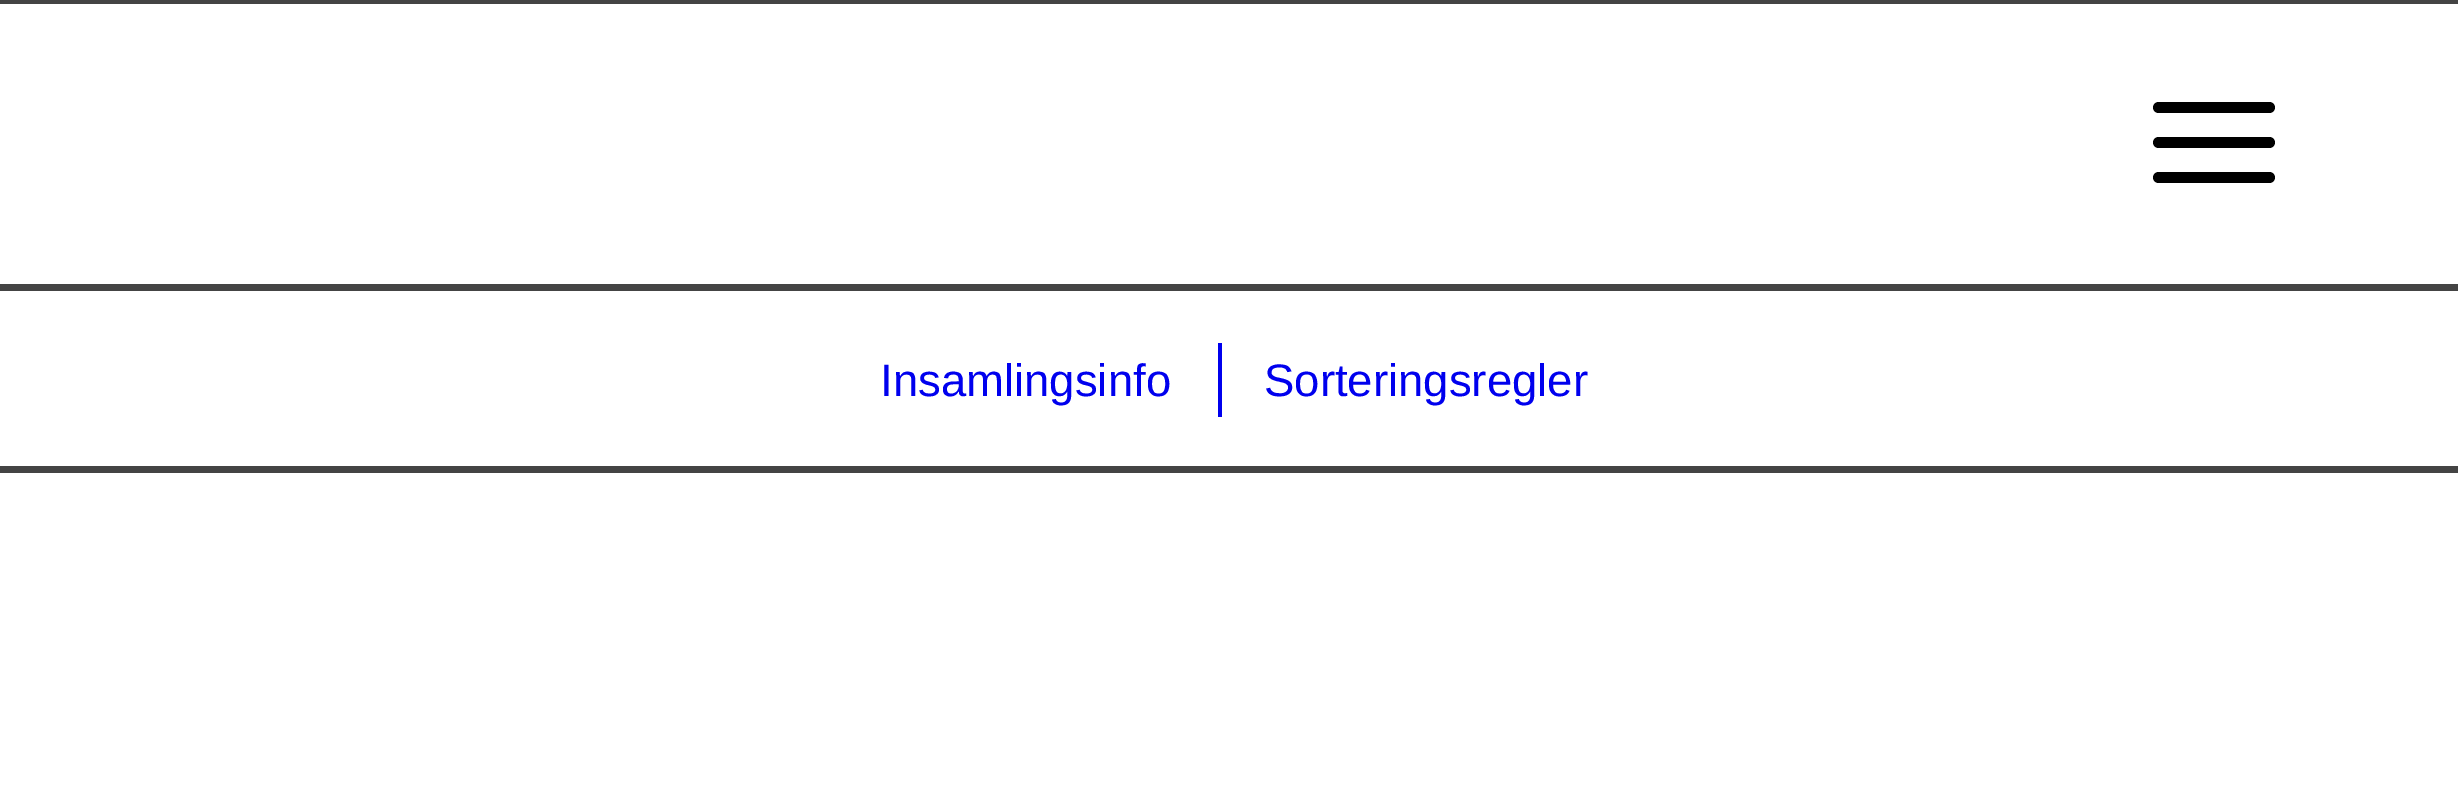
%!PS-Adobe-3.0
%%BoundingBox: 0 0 2458 789
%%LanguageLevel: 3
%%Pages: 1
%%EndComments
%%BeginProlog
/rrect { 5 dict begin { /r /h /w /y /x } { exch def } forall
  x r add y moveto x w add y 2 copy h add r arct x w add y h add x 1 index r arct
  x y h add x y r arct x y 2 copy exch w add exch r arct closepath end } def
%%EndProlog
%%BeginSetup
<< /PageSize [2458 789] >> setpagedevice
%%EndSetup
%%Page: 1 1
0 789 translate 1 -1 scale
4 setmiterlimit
1 setgray
0 0 2458 789 rectfill
0.267 setgray
0 0 2458 4 rectfill
0 setgray
2153 137 122 11 5.5 rrect fill
2153 102 122 11 5.5 rrect fill
2153 172 122 11 5.5 rrect fill
0.267 setgray
0 284 2458 7 rectfill
0 0 0.933 setrgbcolor
1218 343 4 74 rectfill
0.267 setgray
0 466 2458 7 rectfill
/LiberationSans-Regular [45.5 0 0 -45.5 0 0] selectfont
0 0 0.933 setrgbcolor
880 396 moveto (Insamlingsinfo) show
1264 396 moveto (Sorteringsregler) show
showpage
%%EOF
